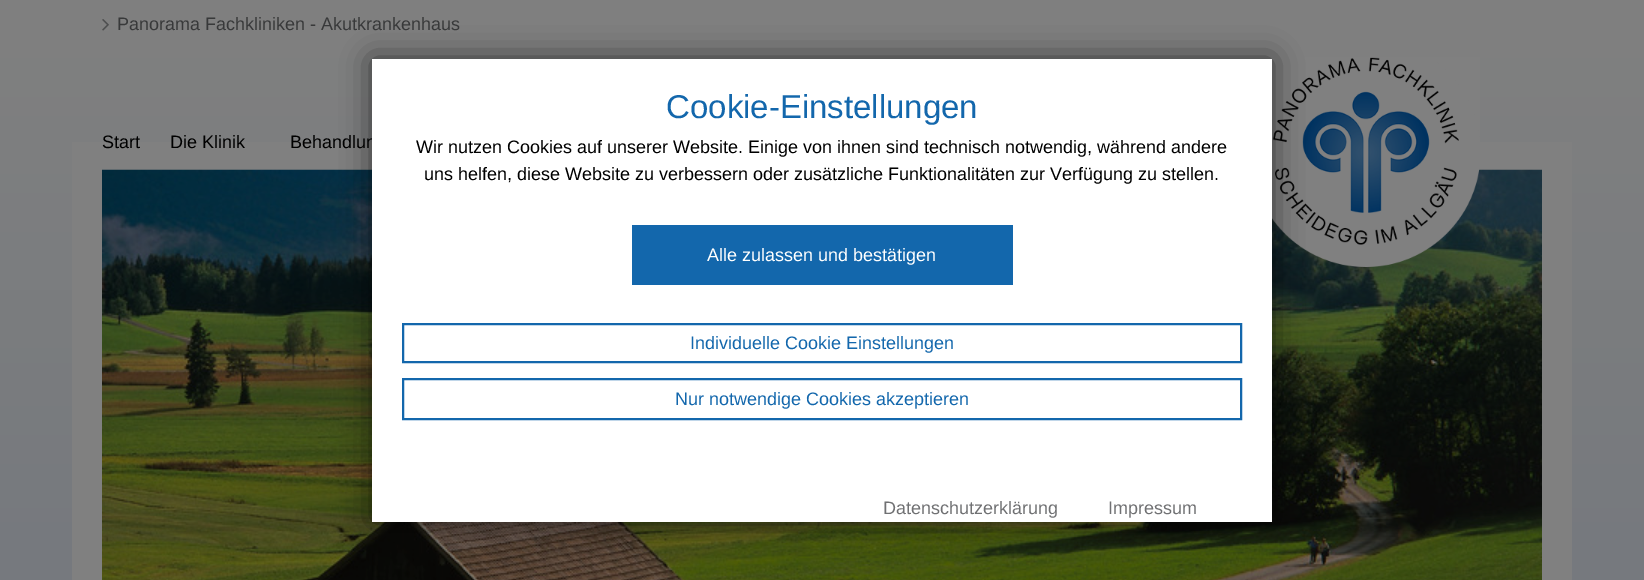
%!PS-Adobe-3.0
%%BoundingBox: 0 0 1644 580
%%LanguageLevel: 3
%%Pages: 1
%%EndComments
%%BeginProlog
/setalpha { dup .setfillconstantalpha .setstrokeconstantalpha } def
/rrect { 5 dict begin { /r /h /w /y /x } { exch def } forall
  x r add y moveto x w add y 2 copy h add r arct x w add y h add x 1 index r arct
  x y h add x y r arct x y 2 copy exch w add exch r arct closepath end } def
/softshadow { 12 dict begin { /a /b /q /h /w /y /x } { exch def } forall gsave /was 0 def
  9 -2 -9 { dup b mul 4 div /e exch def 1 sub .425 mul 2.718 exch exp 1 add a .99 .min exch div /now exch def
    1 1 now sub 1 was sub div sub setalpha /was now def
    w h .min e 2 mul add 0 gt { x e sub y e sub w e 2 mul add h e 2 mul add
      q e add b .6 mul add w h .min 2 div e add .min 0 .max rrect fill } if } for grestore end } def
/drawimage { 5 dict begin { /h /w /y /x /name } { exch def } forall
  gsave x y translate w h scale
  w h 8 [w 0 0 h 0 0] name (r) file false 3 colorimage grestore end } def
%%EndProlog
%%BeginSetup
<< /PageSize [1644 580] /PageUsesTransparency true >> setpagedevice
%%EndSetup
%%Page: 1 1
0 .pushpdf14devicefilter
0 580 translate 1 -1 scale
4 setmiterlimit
1 setgray
0 0 1644 580 rectfill
gsave newpath 0 0 moveto 1644 0 lineto 1644 580 lineto 0 580 lineto closepath clip newpath
<< /ShadingType 2 /ColorSpace /DeviceRGB /Coords [822 0 822 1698] /Extend [true true] /Function << /FunctionType 2 /Domain [0 1] /C0 [0.502 0.502 0.502] /C1 [0.384 0.424 0.478] /N 1 >> >> shfill grestore
0.502 setgray
72 142 1500 438 rectfill
(images/1.raw) 102 19 7 12 drawimage
(images/3.raw) 102 169 1440 411 drawimage
(images/2.raw) 1272 57 208 210 drawimage
0 setgray
372 59 900 463 0 15 0.6 softshadow
/LiberationSans-Regular [18 0 0 -18 0 0] selectfont
0.22 0.224 0.227 setrgbcolor
117 30 moveto (Panorama Fachkliniken - Akutkrankenhaus) show
0 setgray
102 148 moveto (Start) show
170 148 moveto (Die Klinik) show
290 148 moveto (Behandlun) show
1 setgray
372 59 900 463 rectfill
/LiberationSans-Regular [33 0 0 -33 0 0] selectfont
0.075 0.404 0.675 setrgbcolor
666 118 moveto (Cookie-Einstellungen) show
/LiberationSans-Regular [18 0 0 -18 0 0] selectfont
0 setgray
416 153 moveto (Wir nutzen Cookies auf unserer Website. Einige von ihnen sind technisch notwendig, während andere) show
424 180 moveto (uns helfen, diese Website zu verbessern oder zusätzliche Funktionalitäten zur Verfügung zu stellen.) show
0.075 0.404 0.675 setrgbcolor
632 225 381 60 rectfill
1 setgray
707 261 moveto (Alle zulassen und bestätigen) show
0.075 0.404 0.675 setrgbcolor
2 setlinewidth
403 324 838 38 rectstroke
690 349 moveto (Individuelle Cookie Einstellungen) show
403 379 838 40 rectstroke
675 405 moveto (Nur notwendige Cookies akzeptieren) show
0.439 0.443 0.451 setrgbcolor
883 514 moveto (Datenschutzerklärung) show
1108 514 moveto (Impressum) show
.poppdf14devicefilter showpage
%%EOF
